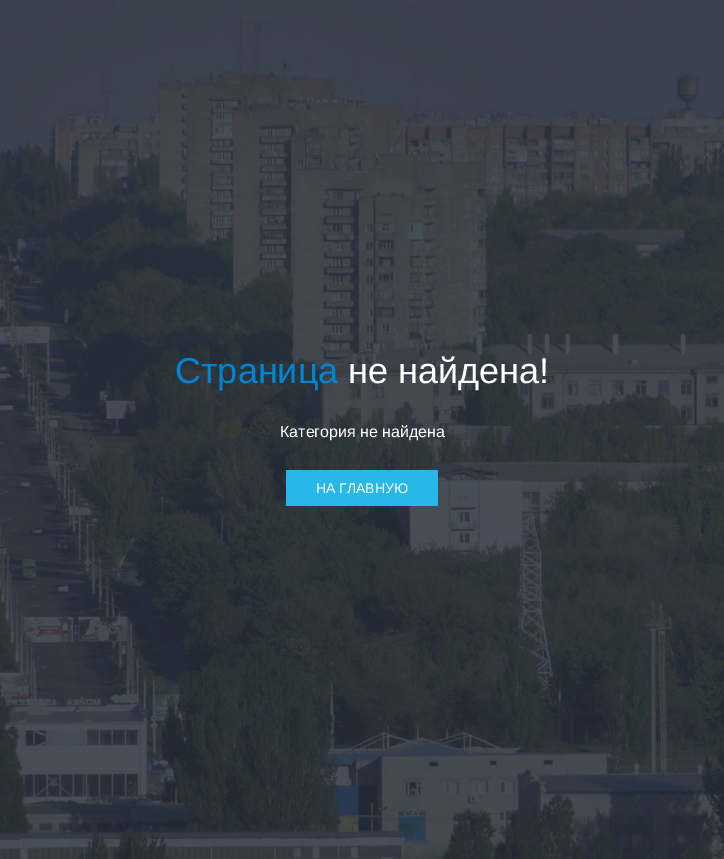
%!PS-Adobe-3.0
%%BoundingBox: 0 0 724 859
%%LanguageLevel: 3
%%Pages: 1
%%EndComments
%%BeginProlog
/drawimage { 5 dict begin { /h /w /y /x /name } { exch def } forall
  gsave x y translate w h scale
  w h 8 [w 0 0 h 0 0] name (r) file false 3 colorimage grestore end } def
%%EndProlog
%%BeginSetup
<< /PageSize [724 859] >> setpagedevice
%%EndSetup
%%Page: 1 1
0 859 translate 1 -1 scale
4 setmiterlimit
1 setgray
0 0 724 859 rectfill
(images/1.raw) 0 0 724 859 drawimage
0.157 0.718 0.914 setrgbcolor
286 470 152 36 rectfill
/LiberationSans-Regular [36 0 0 -36 0 0] selectfont
0 0.522 0.827 setrgbcolor
175 383 moveto (Страница) show
1 setgray
348 383 moveto (не найдена!) show
/LiberationSans-Regular [16 0 0 -16 0 0] selectfont
280 437 moveto (Категория не найдена) show
/LiberationSans-Regular [14 0 0 -14 0 0] selectfont
316 493 moveto (НА ГЛАВНУЮ) show
showpage
%%EOF
